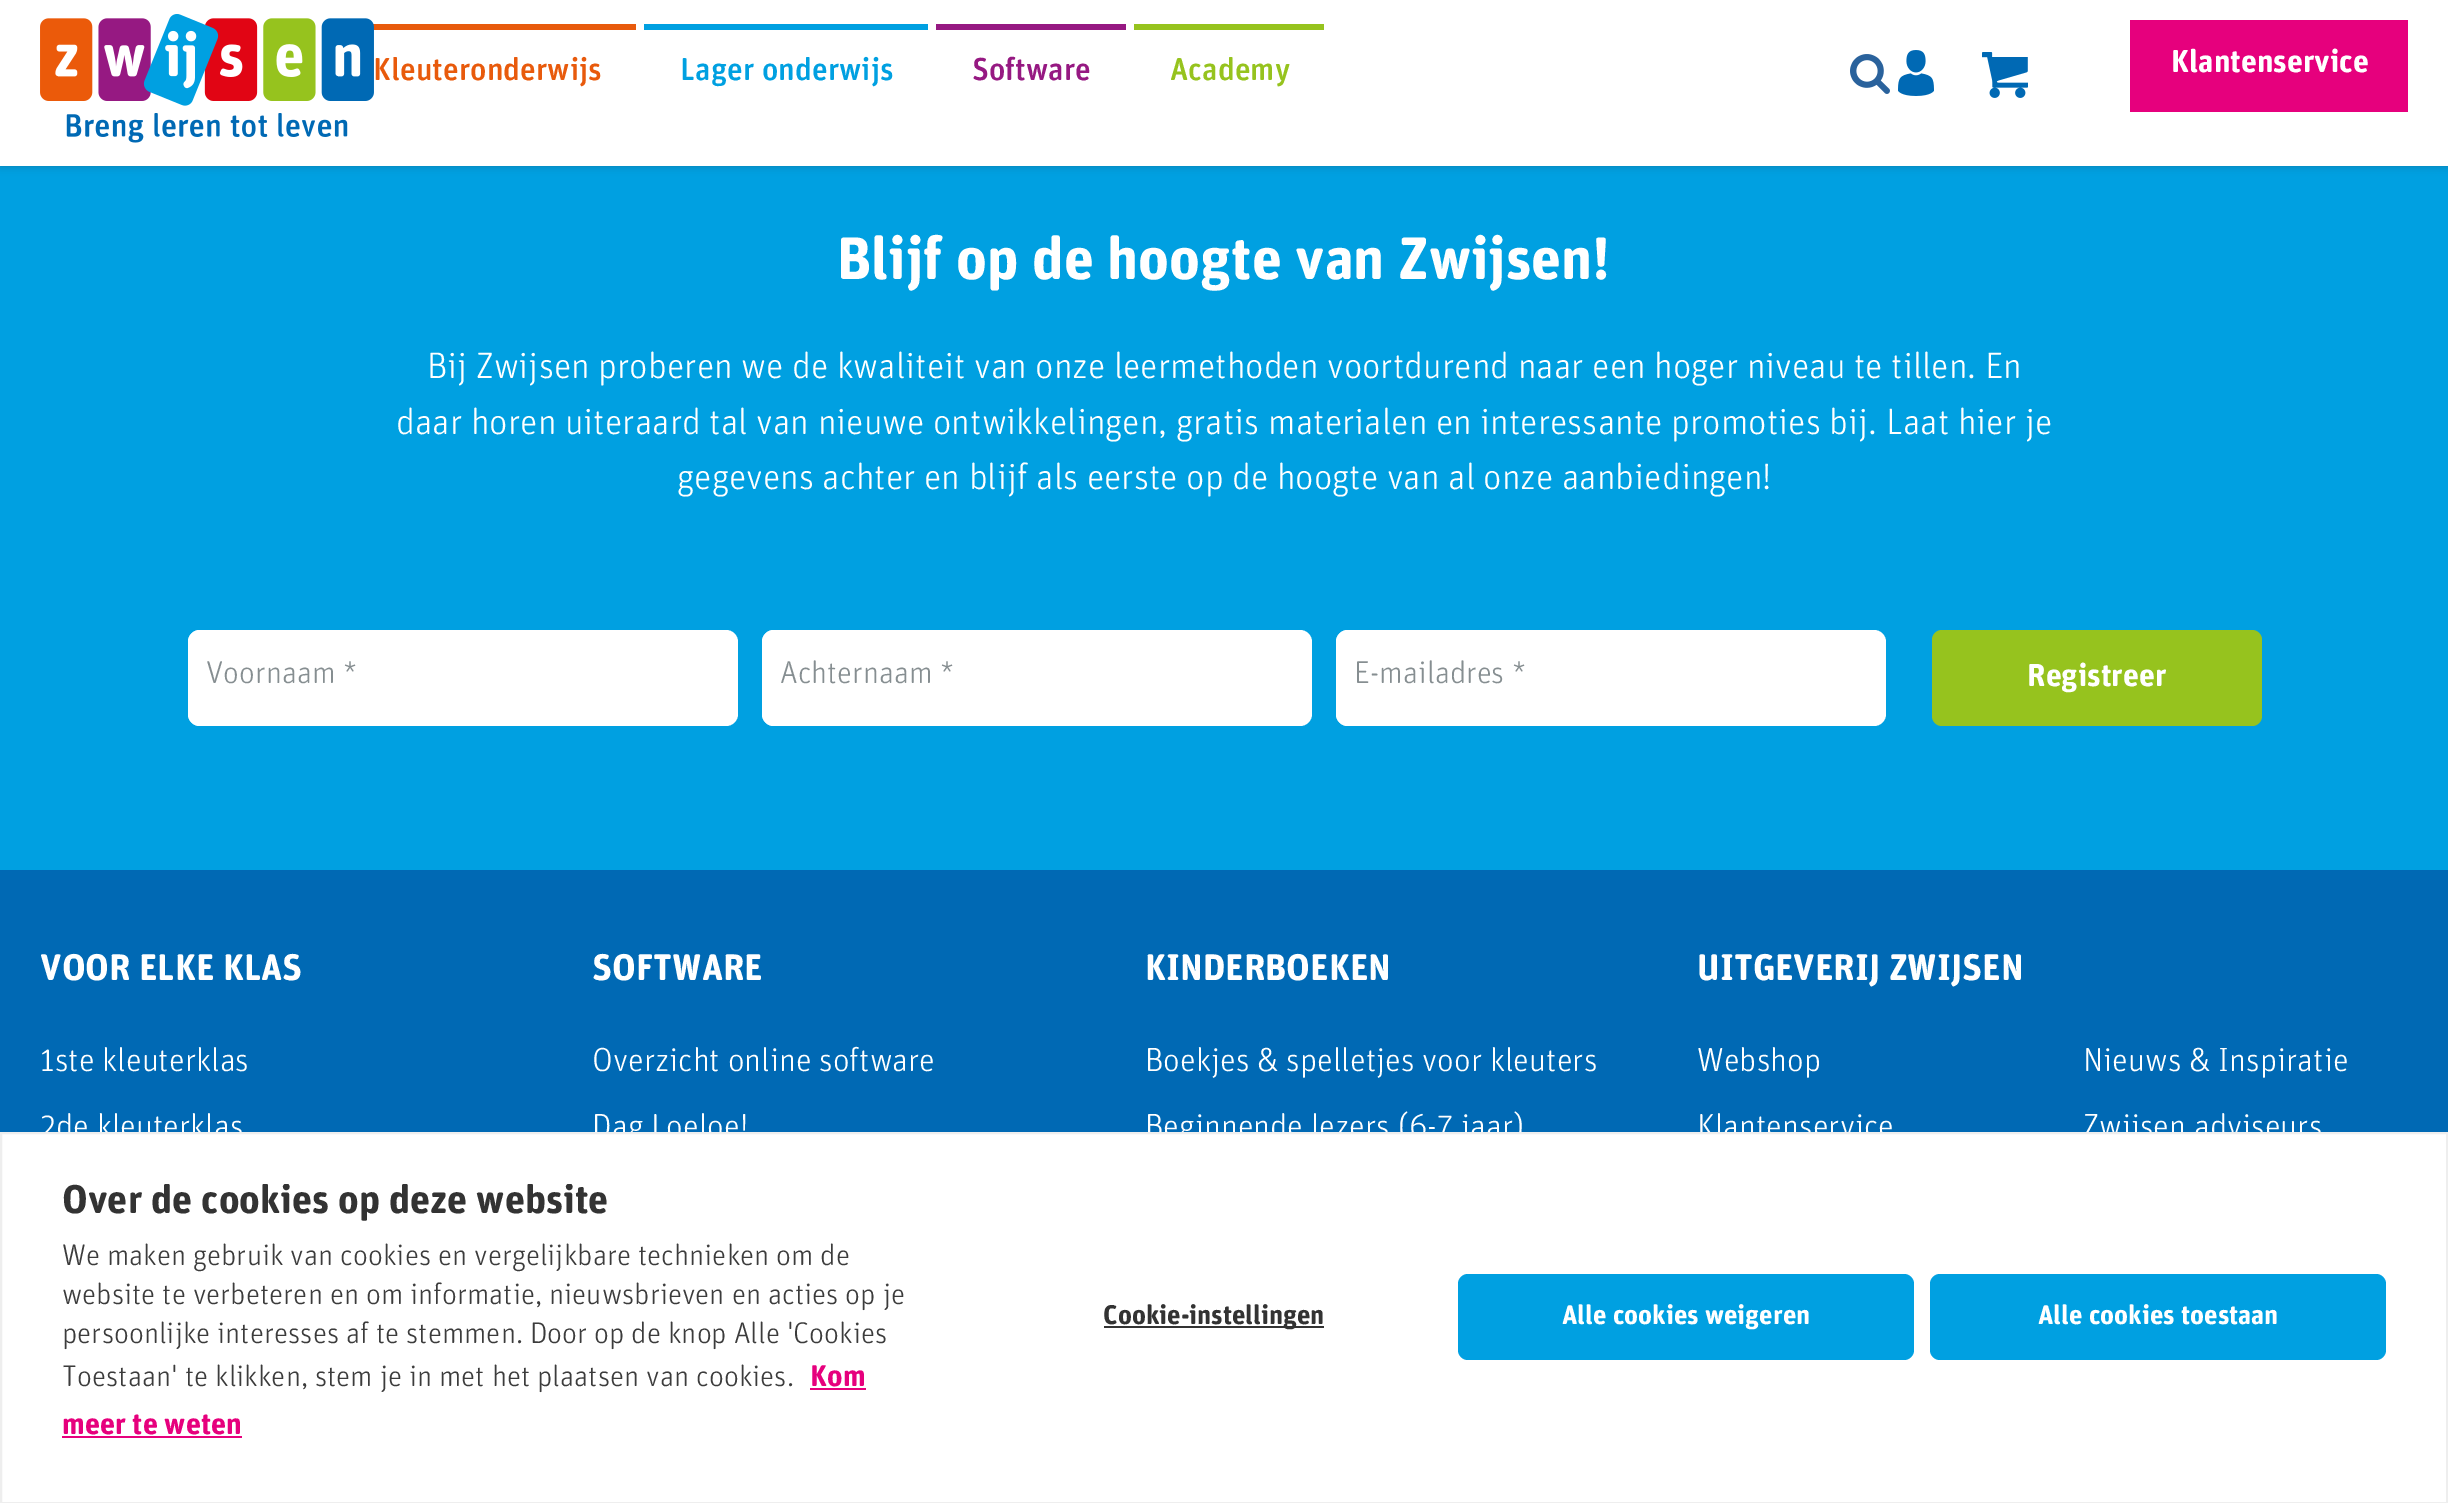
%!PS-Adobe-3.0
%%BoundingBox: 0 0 2448 1503
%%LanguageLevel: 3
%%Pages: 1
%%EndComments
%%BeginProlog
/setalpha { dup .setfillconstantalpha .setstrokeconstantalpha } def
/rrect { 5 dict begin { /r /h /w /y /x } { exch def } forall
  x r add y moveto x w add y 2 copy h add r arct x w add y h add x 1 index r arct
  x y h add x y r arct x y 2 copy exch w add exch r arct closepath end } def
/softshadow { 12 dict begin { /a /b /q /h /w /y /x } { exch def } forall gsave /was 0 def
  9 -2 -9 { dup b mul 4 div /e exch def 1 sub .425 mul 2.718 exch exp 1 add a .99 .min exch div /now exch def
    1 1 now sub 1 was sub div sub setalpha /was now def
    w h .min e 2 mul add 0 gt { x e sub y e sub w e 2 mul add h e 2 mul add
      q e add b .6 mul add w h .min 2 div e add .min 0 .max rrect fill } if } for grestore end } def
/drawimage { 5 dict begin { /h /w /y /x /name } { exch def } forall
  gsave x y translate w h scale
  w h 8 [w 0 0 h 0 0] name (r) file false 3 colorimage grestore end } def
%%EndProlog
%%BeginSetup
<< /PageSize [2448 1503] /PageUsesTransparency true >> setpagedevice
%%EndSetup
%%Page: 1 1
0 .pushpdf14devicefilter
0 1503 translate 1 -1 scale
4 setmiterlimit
1 setgray
0 0 2448 1503 rectfill
0 0.627 0.882 setrgbcolor
newpath 0 67 moveto 2448 122 lineto 2448 1017 lineto 0 962 lineto closepath fill
0.153 0.169 0.18 setrgbcolor
0 -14 2448 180 0 4.5 0.3 softshadow
1 setgray
0 0 2448 166 rectfill
0.91 0.353 0.047 setrgbcolor
373 24 263 6 rectfill
(images/1.raw) 40 14 334 129 drawimage
(images/2.raw) 1898 50 36 46 drawimage
(images/3.raw) 1982 52 46 46 drawimage
0 0.627 0.882 setrgbcolor
644 24 284 6 rectfill
0.588 0.098 0.51 setrgbcolor
936 24 190 6 rectfill
0.588 0.765 0.118 setrgbcolor
1134 24 190 6 rectfill
(images/4.raw) 1850 54 40 40 drawimage
0.902 0 0.49 setrgbcolor
2130 20 278 92 rectfill
1 setgray
188 630 550 96 12 rrect fill
newpath 200 630 moveto 724 630 lineto 724 726 lineto 200 726 lineto 193.5 726 188 720.5 188 714 curveto 188 642 lineto 188 635.5 193.5 630 200 630 curveto closepath fill
762 630 550 96 12 rrect fill
newpath 774 630 moveto 1298 630 lineto 1298 726 lineto 774 726 lineto 767.5 726 762 720.5 762 714 curveto 762 642 lineto 762 635.5 767.5 630 774 630 curveto closepath fill
1336 630 550 96 12 rrect fill
newpath 1348 630 moveto 1872 630 lineto 1872 726 lineto 1348 726 lineto 1341.5 726 1336 720.5 1336 714 curveto 1336 642 lineto 1336 635.5 1341.5 630 1348 630 curveto closepath fill
0.588 0.765 0.118 setrgbcolor
1932 630 330 96 10 rrect fill
0 0.412 0.706 setrgbcolor
0 870 2448 262 rectfill
/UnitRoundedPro-Medium [31.75 0 0 -31.75 0 0] selectfont
0.91 0.353 0.047 setrgbcolor
373 80 moveto (Kleuteronderwijs) show
0 0.627 0.882 setrgbcolor
680 80 moveto (Lager onderwijs) show
0.588 0.098 0.51 setrgbcolor
972 80 moveto (Software) show
0.588 0.765 0.118 setrgbcolor
1170 80 moveto (Academy) show
/UnitRoundedPro-Bold [31.75 0 0 -31.75 0 0] selectfont
1 setgray
2171 72 moveto (Klantenservice) show
/UnitRoundedPro-Bold [59.8 0 0 -59.8 0 0] selectfont
837 279 moveto (Blijf op de hoogte van Zwijsen!) show
/UnitRoundedPro-Light [36.95 0 0 -36.95 0 0] selectfont
427 378 moveto (Bij Zwijsen proberen we de kwaliteit van onze leermethoden voortdurend naar een hoger niveau te tillen. En) show
396 434 moveto (daar horen uiteraard tal van nieuwe ontwikkelingen, gratis materialen en interessante promoties bij. Laat hier je) show
677 489 moveto (gegevens achter en blijf als eerste op de hoogte van al onze aanbiedingen!) show
/UnitRoundedPro-Light [31.75 0 0 -31.75 0 0] selectfont
0.525 0.557 0.569 setrgbcolor
206 683 moveto (Voornaam *) show
780 683 moveto (Achternaam *) show
1354 683 moveto (E-mailadres *) show
/UnitRoundedPro-Bold [31.75 0 0 -31.75 0 0] selectfont
1 setgray
2027 686 moveto (Registreer) show
/UnitRoundedPro-Bold [36.95 0 0 -36.95 0 0] selectfont
40 980 moveto (VOOR ELKE KLAS) show
/UnitRoundedPro-Light [33.5 0 0 -33.5 0 0] selectfont
40 1071 moveto (1ste kleuterklas) show
40 1137 moveto (2de kleuterklas) show
/UnitRoundedPro-Bold [36.95 0 0 -36.95 0 0] selectfont
592 980 moveto (SOFTWARE) show
/UnitRoundedPro-Light [33.5 0 0 -33.5 0 0] selectfont
592 1071 moveto (Overzicht online software) show
592 1137 moveto (Dag Loeloe!) show
/UnitRoundedPro-Bold [36.95 0 0 -36.95 0 0] selectfont
1145 980 moveto (KINDERBOEKEN) show
/UnitRoundedPro-Light [33.5 0 0 -33.5 0 0] selectfont
1145 1071 moveto (Boekjes & spelletjes voor kleuters) show
1145 1137 moveto (Beginnende lezers \(6-7 jaar\)) show
/UnitRoundedPro-Bold [36.95 0 0 -36.95 0 0] selectfont
1697 980 moveto (UITGEVERIJ ZWIJSEN) show
/UnitRoundedPro-Light [33.5 0 0 -33.5 0 0] selectfont
1697 1071 moveto (Webshop) show
2083 1071 moveto (Nieuws & Inspiratie) show
1697 1137 moveto (Klantenservice) show
2083 1137 moveto (Zwijsen adviseurs) show
0.933 setgray
2 setlinewidth
1 1133 2446 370 rectstroke
gsave
62 1184 844 268 rectclip
/UnitRoundedPro-Bold [40 0 0 -40 0 0] selectfont
0.2 setgray
62 1213 moveto (Over de cookies op deze website) show
grestore
/UnitRoundedPro-Light [30 0 0 -30 0 0] selectfont
0.235 setgray
62 1265 moveto (We maken gebruik van cookies en vergelijkbare technieken om de) show
62 1304 moveto (website te verbeteren en om informatie, nieuwsbrieven en acties op je) show
62 1343 moveto (persoonlijke interesses af te stemmen. Door op de knop Alle 'Cookies) show
62 1386 moveto (Toestaan' te klikken, stem je in met het plaatsen van cookies.) show
/UnitRoundedPro-Bold [30 0 0 -30 0 0] selectfont
0.902 0 0.49 setrgbcolor
810 1386 moveto (Kom) show
810 1388 56 2 rectfill
62 1434 moveto (meer te weten) show
62 1436 180 2 rectfill
0.2 setgray
1104 1326 220 2 rectfill
/UnitRoundedPro-Bold [27 0 0 -27 0 0] selectfont
1103 1324 moveto (Cookie-instellingen) show
0 0.627 0.882 setrgbcolor
1458 1274 456 86 10 rrect fill
1 setgray
1562 1324 moveto (Alle cookies weigeren) show
0 0.627 0.882 setrgbcolor
1930 1274 456 86 10 rrect fill
1 setgray
2038 1324 moveto (Alle cookies toestaan) show
.poppdf14devicefilter showpage
%%EOF
